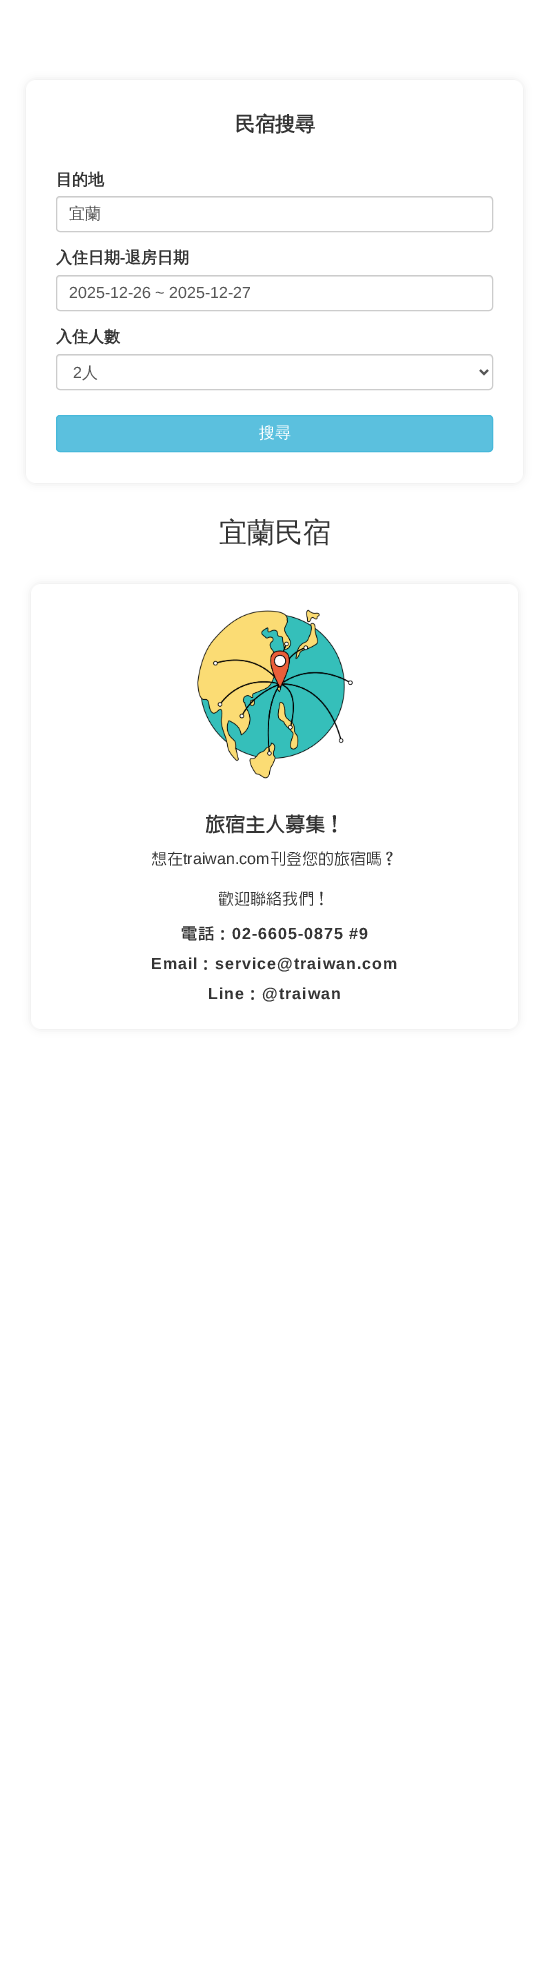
%!PS-Adobe-3.0
%%BoundingBox: 0 0 549 1982
%%LanguageLevel: 3
%%Pages: 1
%%EndComments
%%BeginProlog
/setalpha { dup .setfillconstantalpha .setstrokeconstantalpha } def
/rrect { 5 dict begin { /r /h /w /y /x } { exch def } forall
  x r add y moveto x w add y 2 copy h add r arct x w add y h add x 1 index r arct
  x y h add x y r arct x y 2 copy exch w add exch r arct closepath end } def
/softshadow { 12 dict begin { /a /b /q /h /w /y /x } { exch def } forall gsave /was 0 def
  9 -2 -9 { dup b mul 4 div /e exch def 1 sub .425 mul 2.718 exch exp 1 add a .99 .min exch div /now exch def
    1 1 now sub 1 was sub div sub setalpha /was now def
    w h .min e 2 mul add 0 gt { x e sub y e sub w e 2 mul add h e 2 mul add
      q e add b .6 mul add w h .min 2 div e add .min 0 .max rrect fill } if } for grestore end } def
/drawimage { 5 dict begin { /h /w /y /x /name } { exch def } forall
  gsave x y translate w h scale
  w h 8 [w 0 0 h 0 0] name (r) file false 3 colorimage grestore end } def
%%EndProlog
%%BeginSetup
<< /PageSize [549 1982] /PageUsesTransparency true >> setpagedevice
%%EndSetup
%%Page: 1 1
0 .pushpdf14devicefilter
0 1982 translate 1 -1 scale
4 setmiterlimit
1 setgray
0 0 549 1982 rectfill
0 setgray
26 80 497 403 10 4 0.1 softshadow
1 setgray
26 80 497 403 10 rrect fill
0.925 setgray
newpath 60 198 moveto 489 198 lineto 491 198 492 199 492 201 curveto 492 199 491 197 489 197 curveto 59 197 lineto 57 199 lineto 57 201 lineto 57 199 58 198 60 198 curveto closepath fill
0.8 setgray
56.5 196.5 436 35 3.5 rrect stroke
0.925 setgray
newpath 60 277 moveto 489 277 lineto 491 277 492 278 492 280 curveto 492 278 491 276 489 276 curveto 59 276 lineto 57 278 lineto 57 280 lineto 57 278 58 277 60 277 curveto closepath fill
0.8 setgray
56.5 275.5 436 35 3.5 rrect stroke
0.925 setgray
newpath 60 356 moveto 489 356 lineto 491 356 492 357 492 359 curveto 492 357 491 355 489 355 curveto 59 355 lineto 57 357 lineto 57 359 lineto 57 357 58 356 60 356 curveto closepath fill
0.8 setgray
56.5 354.5 436 35 3.5 rrect stroke
0.333 setgray
2 setlinewidth
newpath 480 370 moveto 484 374 lineto 488 370 lineto stroke
0.357 0.753 0.871 setrgbcolor
56.5 415.5 436 36 3.5 rrect gsave fill grestore
0.275 0.722 0.855 setrgbcolor
1 setlinewidth
stroke
0 setgray
31 584 487 445 10 4 0.1 softshadow
1 setgray
31 584 487 445 10 rrect fill
(images/1.raw) 197 609 156 170 drawimage
/WenQuanYiZenHei-Bold [20 0 0 -20 0 0] selectfont
0.2 setgray
235 131 moveto (民宿搜尋) show
/WenQuanYiZenHei-Bold [16 0 0 -16 0 0] selectfont
56 185 moveto (目的地) show
/WenQuanYiZenHei-Medium [16 0 0 -16 0 0] selectfont
0.333 setgray
69 219 moveto (宜蘭) show
/WenQuanYiZenHei-Bold [16 0 0 -16 0 0] selectfont
0.2 setgray
56 263 moveto (入住日期) show
/LiberationSans-Bold [16 0 0 -16 0 0] selectfont
120 263 moveto (-) show
/WenQuanYiZenHei-Bold [16 0 0 -16 0 0] selectfont
125 263 moveto (退房日期) show
/LiberationSans-Regular [16 0 0 -16 0 0] selectfont
0.333 setgray
69 298 moveto (2025-12-26 ~ 2025-12-27) show
/WenQuanYiZenHei-Bold [16 0 0 -16 0 0] selectfont
0.2 setgray
56 342 moveto (入住人數) show
/LiberationSans-Regular [16 0 0 -16 0 0] selectfont
0.333 setgray
73 378 moveto (2) show
/WenQuanYiZenHei-Medium [16 0 0 -16 0 0] selectfont
82 378 moveto (人) show
1 setgray
259 438 moveto (搜尋) show
/WenQuanYiZenHei-Medium [28 0 0 -28 0 0] selectfont
0.2 setgray
219 542 moveto (宜蘭民宿) show
/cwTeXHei-Bold [20 0 0 -20 0 0] selectfont
205 831 moveto (旅宿主人募集！) show
/cwTeXHei-Medium [16 0 0 -16 0 0] selectfont
151 864 moveto (想在) show
/LiberationSans-Regular [16 0 0 -16 0 0] selectfont
183 864 moveto (traiwan.com) show
/cwTeXHei-Medium [16 0 0 -16 0 0] selectfont
270 864 moveto (刊登您的旅宿嗎？) show
218 904 moveto (歡迎聯絡我們！) show
/cwTeXHei-Bold [16 0 0 -16 0 0] selectfont
181 939 moveto 1 0 (電話：) ashow
/LiberationSans-Bold [16 0 0 -16 0 0] selectfont
232 939 moveto 1 0 (02-6605-0875 #9) ashow
151 969 moveto 1 0 (Email) ashow
/cwTeXHei-Bold [16 0 0 -16 0 0] selectfont
198 969 moveto 1 0 (：) ashow
/LiberationSans-Bold [16 0 0 -16 0 0] selectfont
215 969 moveto 1 0 (service@traiwan.com) ashow
208 999 moveto 1 0 (Line) ashow
/cwTeXHei-Bold [16 0 0 -16 0 0] selectfont
245 999 moveto 1 0 (：) ashow
/LiberationSans-Bold [16 0 0 -16 0 0] selectfont
262 999 moveto 1 0 (@traiwan) ashow
.poppdf14devicefilter showpage
%%EOF
